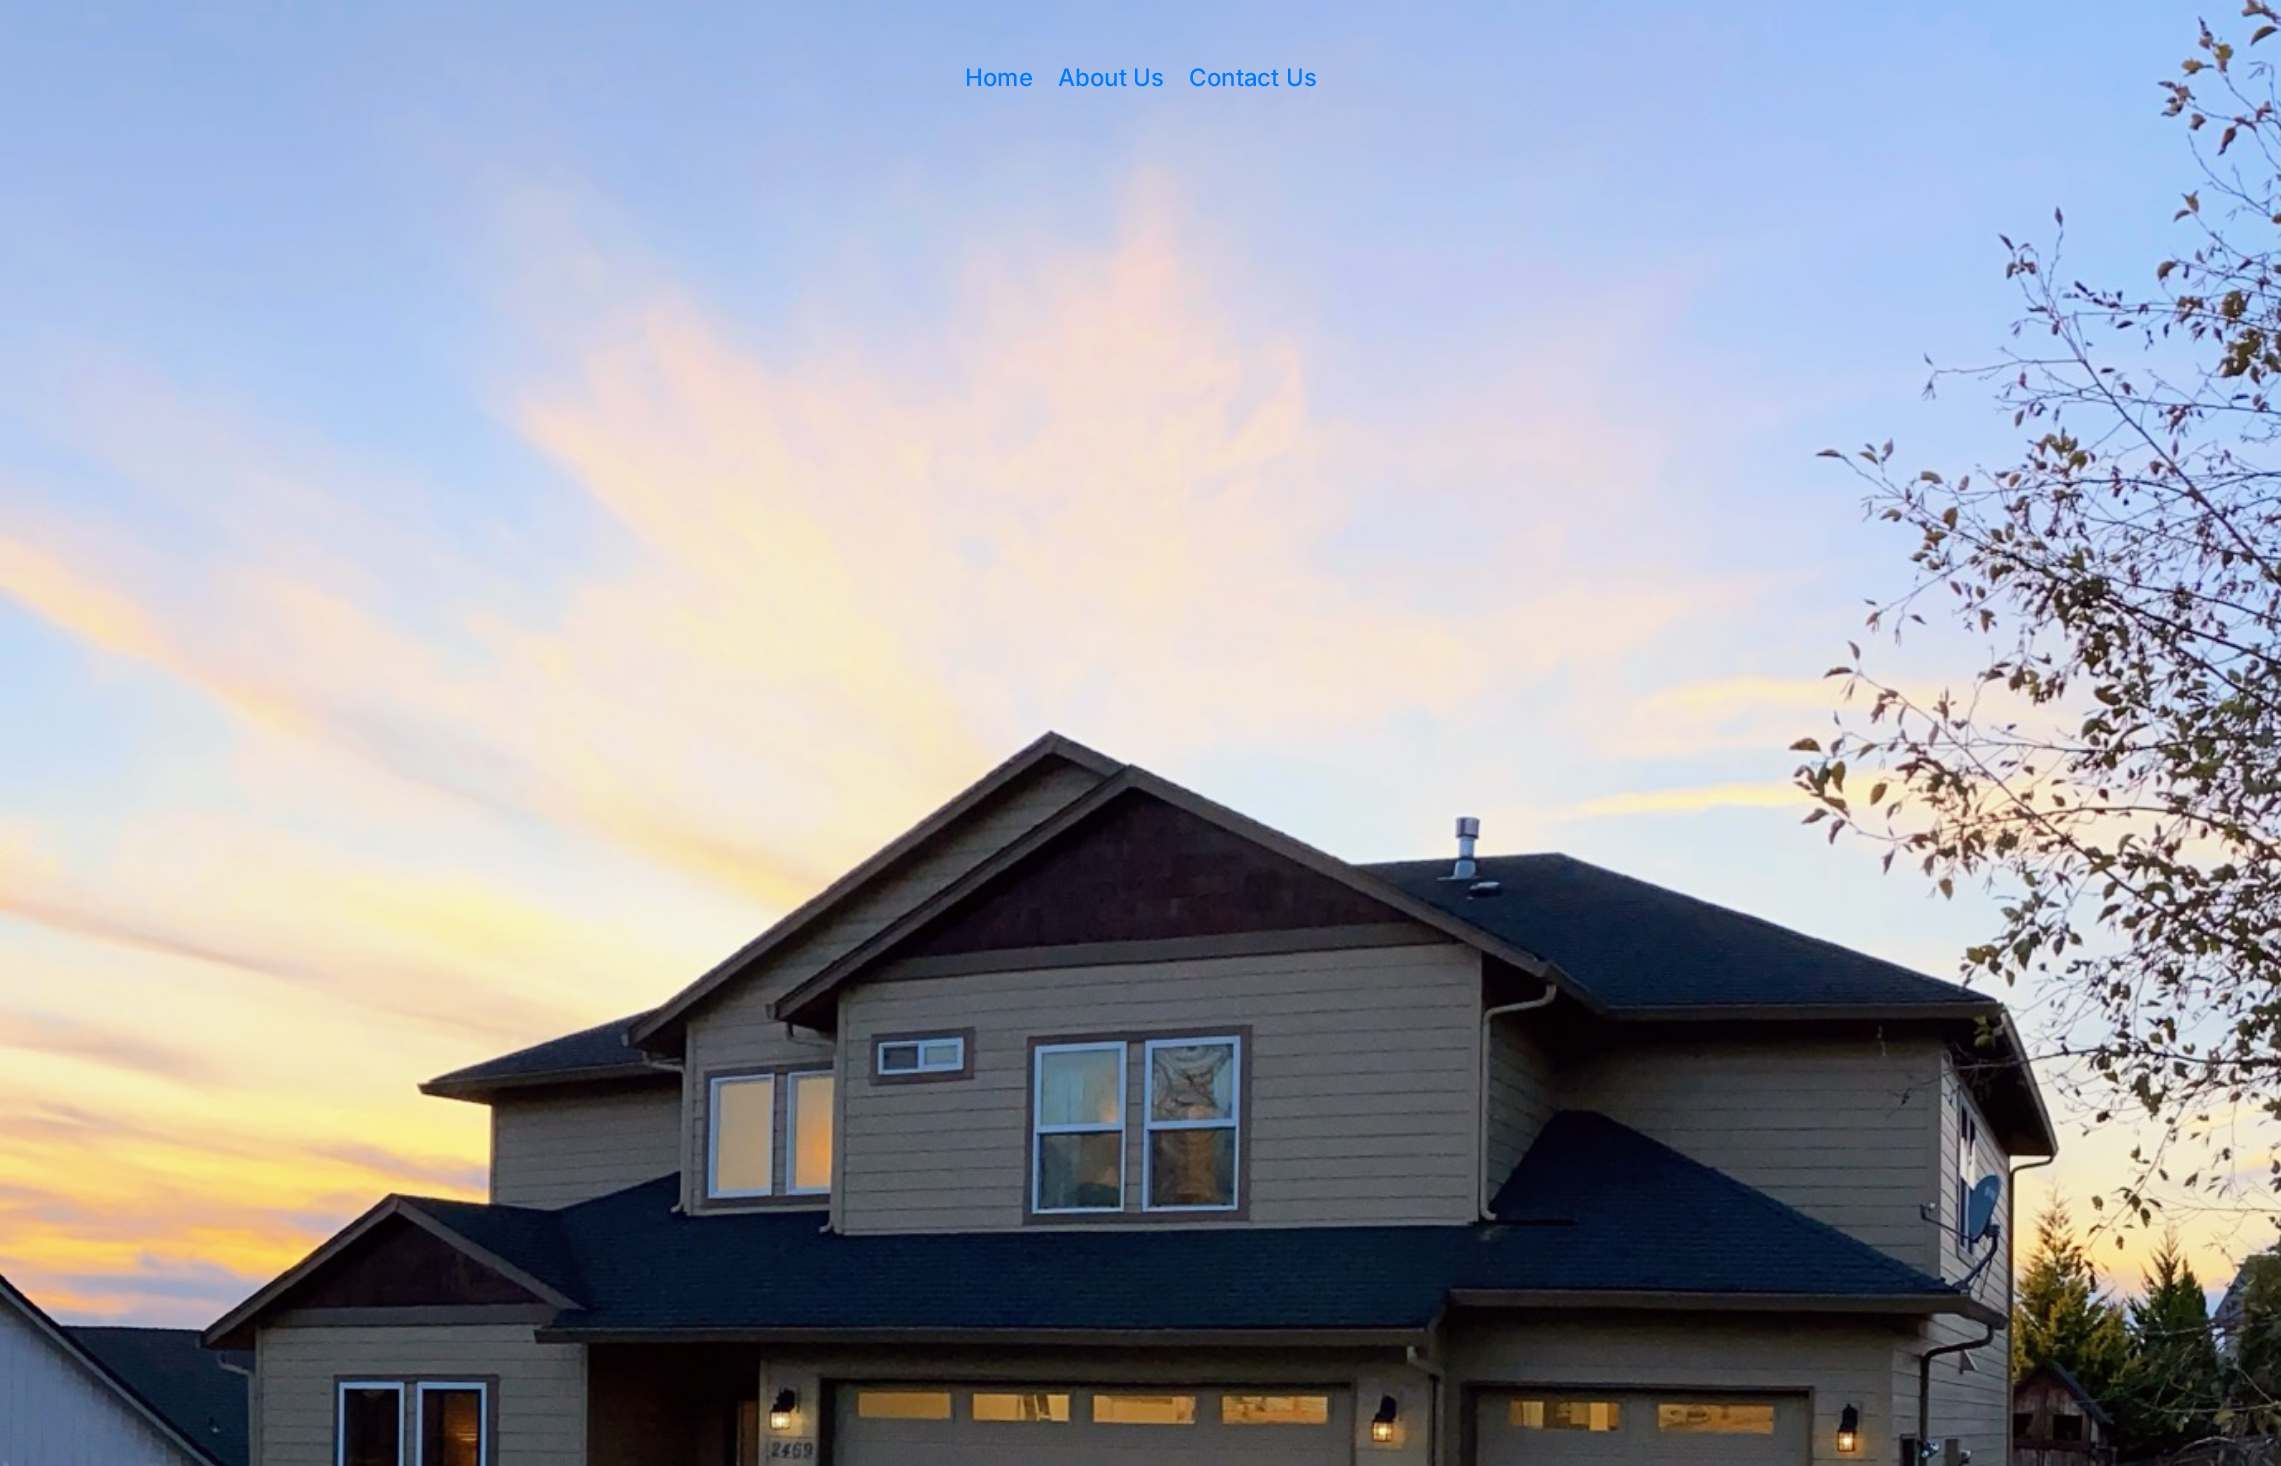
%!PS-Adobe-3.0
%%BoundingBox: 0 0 2281 1466
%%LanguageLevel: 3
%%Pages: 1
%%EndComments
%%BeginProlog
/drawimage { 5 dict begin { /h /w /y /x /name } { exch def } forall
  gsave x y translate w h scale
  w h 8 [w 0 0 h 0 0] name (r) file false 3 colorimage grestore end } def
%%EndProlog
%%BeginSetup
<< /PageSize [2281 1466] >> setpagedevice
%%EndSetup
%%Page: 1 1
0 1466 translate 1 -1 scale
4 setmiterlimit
1 setgray
0 0 2281 1466 rectfill
(images/1.raw) 0 0 2281 1466 drawimage
/Inter-Medium [24 0 0 -24 0 0] selectfont
0 0.482 1 setrgbcolor
965 86 moveto (Home) show
1058 86 moveto (About Us) show
1189 86 moveto (Contact Us) show
showpage
%%EOF
